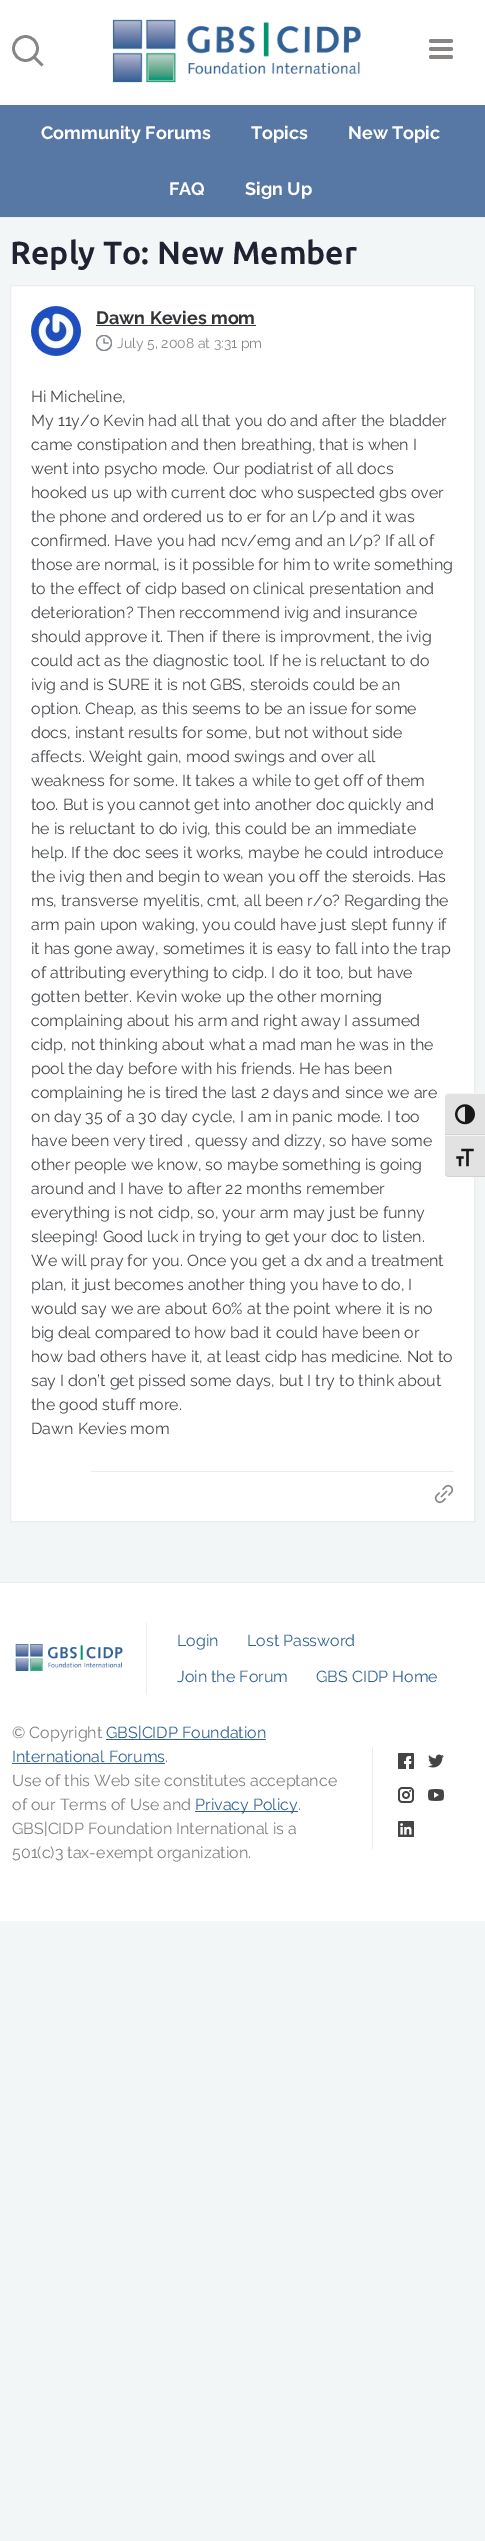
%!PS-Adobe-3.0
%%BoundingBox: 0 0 485 2541
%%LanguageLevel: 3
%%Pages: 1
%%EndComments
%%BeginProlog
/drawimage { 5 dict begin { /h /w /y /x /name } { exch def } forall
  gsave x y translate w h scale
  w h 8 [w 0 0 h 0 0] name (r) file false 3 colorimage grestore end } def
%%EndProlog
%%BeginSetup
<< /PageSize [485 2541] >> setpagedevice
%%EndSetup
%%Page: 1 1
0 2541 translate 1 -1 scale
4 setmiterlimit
0.949 0.965 0.969 setrgbcolor
0 0 485 2541 rectfill
1 setgray
0 0 485 105 rectfill
0.925 setgray
0 217 485 1 rectfill
0.533 0.522 0.522 setrgbcolor
2.7 setlinewidth
2 setlinecap
newpath 41.5 64.5 moveto 34 57 lineto stroke
0 setlinecap
newpath 25.5 48.5 12 0 360 arc closepath stroke
(images/1.raw) 112 19 249 64 drawimage
(images/2.raw) 429 39 24 20 drawimage
0.341 0.471 0.643 setrgbcolor
0 105 485 112 rectfill
1 setgray
newpath 10.5 285.5 moveto 474.5 285.5 lineto 474.5 1521.5 lineto 10.5 1521.5 lineto closepath gsave fill grestore
0.925 setgray
1 setlinewidth
stroke
(images/3.raw) 31 306 50 50 drawimage
0.196 0.208 0.22 setrgbcolor
96 325 160 1 rectfill
gsave
96 335 16 16 rectclip
0.525 0.537 0.545 setrgbcolor
1.3 setlinewidth
newpath 104 343 7.5 0 360 arc closepath stroke
grestore
0.525 0.537 0.545 setrgbcolor
1.3 setlinewidth
2 setlinecap
newpath 104 339 moveto 104 343 lineto 108 343 lineto stroke
0.922 setgray
91 1471 363 1 rectfill
(images/4.raw) 434 1484 20 20 drawimage
1 setgray
0 1583 485 338 rectfill
0.925 setgray
0 1582 485 1 rectfill
(images/5.raw) 15 1644 108 27 drawimage
146 1623 1 72 rectfill
0.196 0.384 0.584 setrgbcolor
106 1739 160 1 rectfill
12 1763 153 1 rectfill
195 1811 103 1 rectfill
0.925 setgray
372 1747 1 102 rectfill
(images/6.raw) 398 1753 16 16 drawimage
(images/7.raw) 428 1754 16 14 drawimage
(images/8.raw) 398 1787 16 16 drawimage
(images/9.raw) 428 1789 16 12 drawimage
(images/10.raw) 398 1821 16 16 drawimage
0.886 setgray
newpath 449 1093 moveto 485 1093 lineto 485 1135 lineto 445 1135 lineto 445 1097 lineto 445 1095 447 1093 449 1093 curveto closepath fill
0.961 setgray
newpath 449 1094 moveto 485 1094 lineto 485 1093 lineto 449 1093 lineto 447 1093 445 1095 445 1097 curveto 445 1095 447 1094 449 1094 curveto closepath fill
0.824 setgray
445 1134 40 1 rectfill
(images/11.raw) 455 1104 20 21 drawimage
0.886 setgray
newpath 445 1135 moveto 485 1135 lineto 485 1177 lineto 449 1177 lineto 447 1177 445 1175 445 1173 curveto closepath fill
0.961 setgray
445 1135 40 1 rectfill
0.824 setgray
newpath 485 1177 moveto 485 1176 lineto 449 1176 lineto 447 1176 445 1175 445 1173 curveto 445 1175 447 1177 449 1177 curveto closepath fill
(images/12.raw) 456 1148 18 19 drawimage
/Raleway-Bold [18 0 0 -18 0 0] selectfont
1 setgray
41 139 moveto (Community Forums) show
251 139 moveto (Topics) show
348 139 moveto (New Topic) show
169 195 moveto (FAQ) show
245 195 moveto (Sign Up) show
/Ubuntu-Bold [32 0 0 -32 0 0] selectfont
0.133 0.129 0.196 setrgbcolor
10 264 moveto (Reply To: New Member) show
/Raleway-Bold [18 0 0 -18 0 0] selectfont
0.196 0.208 0.22 setrgbcolor
96 324 moveto (Dawn Kevies mom) show
/Raleway-Regular [14 0 0 -14 0 0] selectfont
0.525 0.537 0.545 setrgbcolor
117 348 moveto (July 5, 2008 at 3:31 pm) show
/Raleway-Regular [16 0 0 -16 0 0] selectfont
0.271 0.286 0.302 setrgbcolor
31 402 moveto (Hi Micheline,) show
31 426 moveto (My 11y/o Kevin had all that you do and after the bladder) show
31 450 moveto (came constipation and then breathing, that is when I) show
31 474 moveto (went into psycho mode. Our podiatrist of all docs) show
31 498 moveto (hooked us up with current doc who suspected gbs over) show
31 522 moveto (the phone and ordered us to er for an l/p and it was) show
31 546 moveto (confirmed. Have you had ncv/emg and an l/p? If all of) show
31 570 moveto (those are normal, is it possible for him to write something) show
31 594 moveto (to the effect of cidp based on clinical presentation and) show
31 618 moveto (deterioration? Then reccommend ivig and insurance) show
31 642 moveto (should approve it. Then if there is improvment, the ivig) show
31 666 moveto (could act as the diagnostic tool. If he is reluctant to do) show
31 690 moveto (ivig and is SURE it is not GBS, steroids could be an) show
31 714 moveto (option. Cheap, as this seems to be an issue for some) show
31 738 moveto (docs, instant results for some, but not without side) show
31 762 moveto (affects. Weight gain, mood swings and over all) show
31 786 moveto (weakness for some. It takes a while to get off of them) show
31 810 moveto (too. But is you cannot get into another doc quickly and) show
31 834 moveto (he is reluctant to do ivig, this could be an immediate) show
31 858 moveto (help. If the doc sees it works, maybe he could introduce) show
31 882 moveto (the ivig then and begin to wean you off the steroids. Has) show
31 906 moveto (ms, transverse myelitis, cmt, all been r/o? Regarding the) show
31 930 moveto (arm pain upon waking, you could have just slept funny if) show
31 954 moveto (it has gone away, sometimes it is easy to fall into the trap) show
31 978 moveto (of attributing everything to cidp. I do it too, but have) show
31 1002 moveto (gotten better. Kevin woke up the other morning) show
31 1026 moveto (complaining about his arm and right away I assumed) show
31 1050 moveto (cidp, not thinking about what a mad man he was in the) show
31 1074 moveto (pool the day before with his friends. He has been) show
31 1098 moveto (complaining he is tired the last 2 days and since we are) show
31 1122 moveto (on day 35 of a 30 day cycle, I am in panic mode. I too) show
31 1146 moveto (have been very tired , quessy and dizzy, so have some) show
31 1170 moveto (other people we know, so maybe something is going) show
31 1194 moveto (around and I have to after 22 months remember) show
31 1218 moveto (everything is not cidp, so, your arm may just be funny) show
31 1242 moveto (sleeping! Good luck in trying to get your doc to listen.) show
31 1266 moveto (We will pray for you. Once you get a dx and a treatment) show
31 1290 moveto (plan, it just becomes another thing you have to do, I) show
31 1314 moveto (would say we are about 60% at the point where it is no) show
31 1338 moveto (big deal compared to how bad it could have been or) show
31 1362 moveto (how bad others have it, at least cidp has medicine. Not to) show
31 1386 moveto (say I don’t get pissed some days, but I try to think about) show
31 1410 moveto (the good stuff more.) show
31 1434 moveto (Dawn Kevies mom) show
0.196 0.384 0.584 setrgbcolor
177 1646 moveto (Login) show
247 1646 moveto (Lost Password) show
177 1682 moveto (Join the Forum) show
316 1682 moveto (GBS CIDP Home) show
0.502 setgray
12 1738 moveto (© Copyright) show
0.196 0.384 0.584 setrgbcolor
106 1738 moveto (GBS|CIDP Foundation) show
12 1762 moveto (International Forums) show
0.502 setgray
165 1762 moveto (.) show
12 1786 moveto (Use of this Web site constitutes acceptance) show
12 1810 moveto (of our Terms of Use and) show
0.196 0.384 0.584 setrgbcolor
195 1810 moveto (Privacy Policy) show
0.502 setgray
298 1810 moveto (.) show
12 1834 moveto (GBS|CIDP Foundation International is a) show
12 1858 moveto (501\(c\)3 tax-exempt organization.) show
showpage
%%EOF
